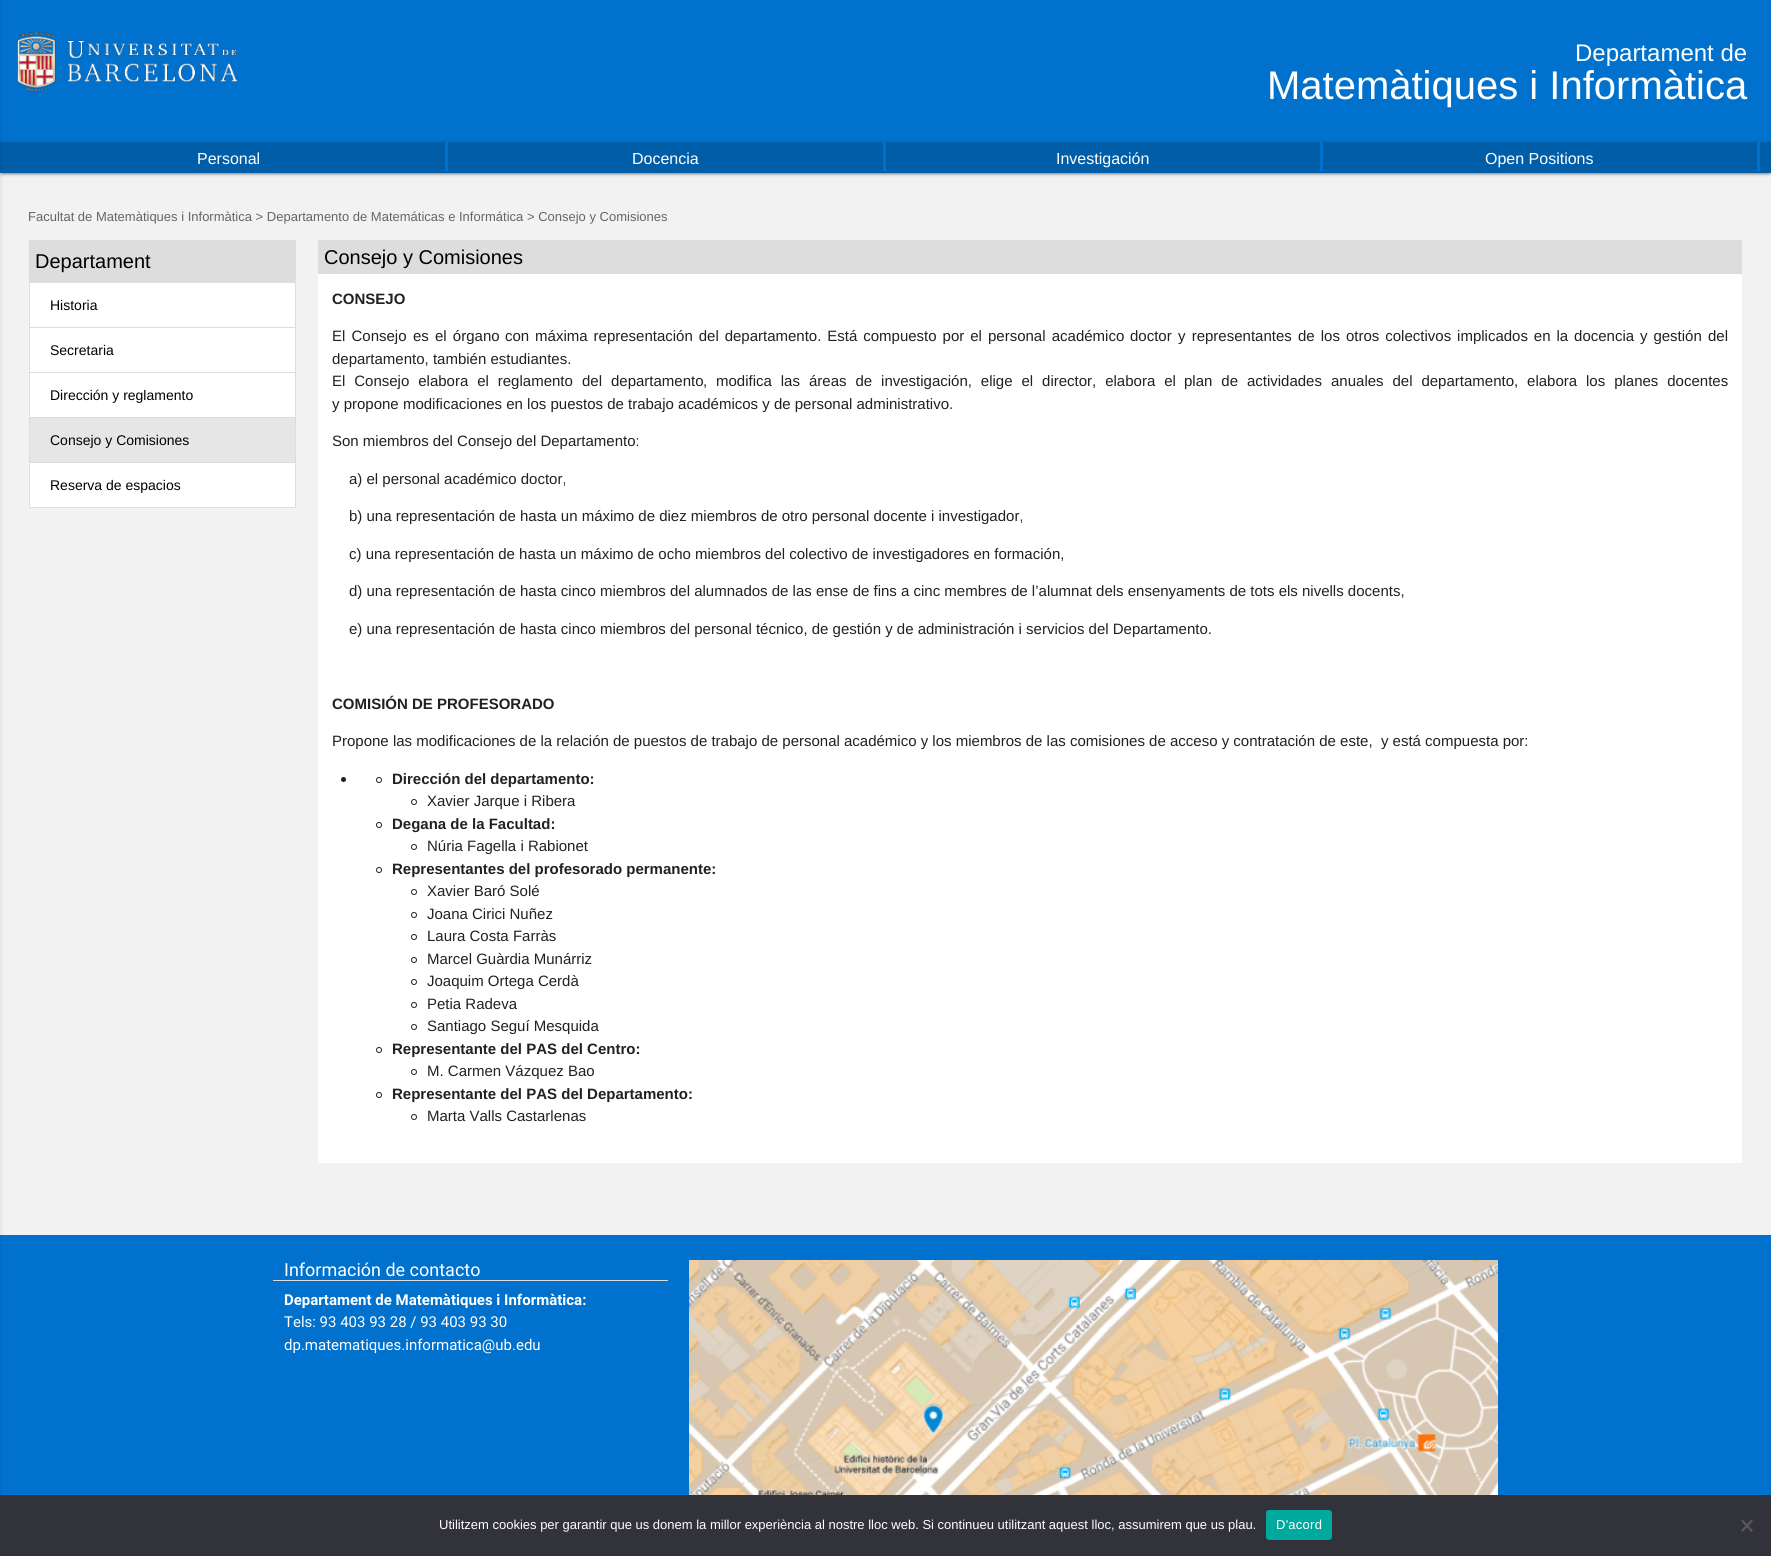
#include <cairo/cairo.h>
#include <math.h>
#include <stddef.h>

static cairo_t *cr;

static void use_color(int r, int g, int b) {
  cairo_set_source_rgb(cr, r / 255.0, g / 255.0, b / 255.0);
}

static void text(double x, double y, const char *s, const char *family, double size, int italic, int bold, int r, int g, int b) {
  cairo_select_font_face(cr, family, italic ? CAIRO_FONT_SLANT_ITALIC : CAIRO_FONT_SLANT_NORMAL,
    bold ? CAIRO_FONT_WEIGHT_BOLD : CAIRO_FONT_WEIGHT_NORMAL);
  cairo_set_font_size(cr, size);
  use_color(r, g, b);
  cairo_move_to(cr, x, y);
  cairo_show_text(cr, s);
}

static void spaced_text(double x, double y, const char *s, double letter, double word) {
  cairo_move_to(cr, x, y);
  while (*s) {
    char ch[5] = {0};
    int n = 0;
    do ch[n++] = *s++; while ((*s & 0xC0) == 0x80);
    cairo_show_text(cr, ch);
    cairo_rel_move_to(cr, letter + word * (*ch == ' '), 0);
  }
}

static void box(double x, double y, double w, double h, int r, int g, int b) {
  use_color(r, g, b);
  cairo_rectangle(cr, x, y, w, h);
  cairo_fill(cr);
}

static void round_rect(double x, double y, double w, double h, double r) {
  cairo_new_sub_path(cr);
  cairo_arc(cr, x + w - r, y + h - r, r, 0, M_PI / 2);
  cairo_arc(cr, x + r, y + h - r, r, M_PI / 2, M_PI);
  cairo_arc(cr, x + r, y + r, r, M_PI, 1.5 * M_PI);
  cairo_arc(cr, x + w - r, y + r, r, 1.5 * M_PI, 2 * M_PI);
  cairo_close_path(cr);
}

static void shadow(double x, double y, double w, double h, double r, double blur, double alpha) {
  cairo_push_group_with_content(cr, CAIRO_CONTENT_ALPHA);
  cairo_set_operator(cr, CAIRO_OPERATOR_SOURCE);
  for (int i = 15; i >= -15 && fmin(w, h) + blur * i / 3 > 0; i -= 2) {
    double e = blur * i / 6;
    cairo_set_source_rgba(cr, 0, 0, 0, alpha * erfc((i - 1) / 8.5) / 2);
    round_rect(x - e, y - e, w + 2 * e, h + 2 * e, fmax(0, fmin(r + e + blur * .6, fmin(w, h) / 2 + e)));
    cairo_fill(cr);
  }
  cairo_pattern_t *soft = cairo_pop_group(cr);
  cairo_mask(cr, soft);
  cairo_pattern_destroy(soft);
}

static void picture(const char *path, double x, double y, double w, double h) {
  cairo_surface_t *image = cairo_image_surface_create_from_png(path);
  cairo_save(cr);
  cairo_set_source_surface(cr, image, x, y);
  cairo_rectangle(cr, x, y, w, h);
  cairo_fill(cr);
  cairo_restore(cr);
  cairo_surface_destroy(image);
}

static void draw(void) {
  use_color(242, 242, 242);
  cairo_paint(cr);
  box(0, 0, 1771, 142, 0, 113, 205);
  use_color(0, 0, 0);
  shadow(2, 147, 1767, 27, 0, 0.5, 0.2);
  shadow(0, 143, 1771, 31, 0, 2.5, 0.12);
  shadow(0, 144, 1771, 31, 0, 1, 0.14);
  box(0, 142, 1771, 31, 0, 94, 168);
  box(0, 1235, 1771, 260, 0, 113, 205);
  use_color(0, 0, 0);
  shadow(-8, 1, 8, 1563, 0, 2.5, 0.12);
  picture("img_01.png", 17, 32, 221, 60);
  box(445, 142, 3, 29, 0, 113, 205);
  box(883, 142, 3, 29, 0, 113, 205);
  box(1320, 142, 3, 29, 0, 113, 205);
  box(1757, 142, 3, 29, 0, 113, 205);
  box(29, 240, 267, 43, 221, 221, 221);
  box(30, 283, 265, 44, 255, 255, 255);
  box(295, 282, 1, 45, 221, 221, 221);
  box(29, 282, 1, 45, 221, 221, 221);
  box(30, 328, 265, 44, 255, 255, 255);
  box(29, 327, 267, 1, 221, 221, 221);
  box(295, 327, 1, 45, 221, 221, 221);
  box(29, 327, 1, 45, 221, 221, 221);
  box(30, 373, 265, 44, 255, 255, 255);
  box(29, 372, 267, 1, 221, 221, 221);
  box(295, 372, 1, 45, 221, 221, 221);
  box(29, 372, 1, 45, 221, 221, 221);
  box(30, 418, 265, 44, 230, 230, 230);
  box(29, 417, 267, 1, 221, 221, 221);
  box(295, 417, 1, 45, 221, 221, 221);
  box(29, 417, 1, 45, 221, 221, 221);
  use_color(255, 255, 255);
  cairo_rectangle(cr, 29.5, 462.5, 266, 45);
  cairo_fill_preserve(cr);
  use_color(221, 221, 221);
  cairo_set_line_width(cr, 1);
  cairo_stroke(cr);
  box(318, 240, 1424, 34, 221, 221, 221);
  box(318, 274, 1424, 889, 255, 255, 255);
  use_color(33, 33, 33);
  cairo_arc(cr, 343.5, 779.5, 2.5, 0, 2 * M_PI);
  cairo_fill(cr);
  cairo_arc(cr, 379, 780, 2.5, 0, 2 * M_PI);
  cairo_stroke(cr);
  cairo_arc(cr, 414, 802, 2.5, 0, 2 * M_PI);
  cairo_stroke(cr);
  cairo_arc(cr, 379, 825, 2.5, 0, 2 * M_PI);
  cairo_stroke(cr);
  cairo_arc(cr, 414, 847, 2.5, 0, 2 * M_PI);
  cairo_stroke(cr);
  cairo_arc(cr, 379, 870, 2.5, 0, 2 * M_PI);
  cairo_stroke(cr);
  cairo_arc(cr, 414, 892, 2.5, 0, 2 * M_PI);
  cairo_stroke(cr);
  cairo_arc(cr, 414, 915, 2.5, 0, 2 * M_PI);
  cairo_stroke(cr);
  cairo_arc(cr, 414, 937, 2.5, 0, 2 * M_PI);
  cairo_stroke(cr);
  cairo_arc(cr, 414, 960, 2.5, 0, 2 * M_PI);
  cairo_stroke(cr);
  cairo_arc(cr, 414, 982, 2.5, 0, 2 * M_PI);
  cairo_stroke(cr);
  cairo_arc(cr, 414, 1005, 2.5, 0, 2 * M_PI);
  cairo_stroke(cr);
  cairo_arc(cr, 414, 1027, 2.5, 0, 2 * M_PI);
  cairo_stroke(cr);
  cairo_arc(cr, 379, 1050, 2.5, 0, 2 * M_PI);
  cairo_stroke(cr);
  cairo_arc(cr, 414, 1072, 2.5, 0, 2 * M_PI);
  cairo_stroke(cr);
  cairo_arc(cr, 379, 1095, 2.5, 0, 2 * M_PI);
  cairo_stroke(cr);
  cairo_arc(cr, 414, 1117, 2.5, 0, 2 * M_PI);
  cairo_stroke(cr);
  box(273, 1280, 395, 1, 221, 221, 221);
  picture("img_02.png", 689, 1260, 809, 235);
  box(0, 1495, 1771, 61, 50, 50, 58);
  use_color(0, 169, 157);
  round_rect(1266, 1510, 66, 30, 3);
  cairo_fill(cr);
  use_color(89, 89, 93);
  cairo_new_path(cr);
  cairo_move_to(cr, 1751.5, 1519.5);
  cairo_line_to(cr, 1753, 1521);
  cairo_line_to(cr, 1742.5, 1532);
  cairo_line_to(cr, 1741, 1530.5);
  cairo_close_path(cr);
  cairo_fill(cr);
  cairo_new_path(cr);
  cairo_move_to(cr, 1741, 1521);
  cairo_line_to(cr, 1742.5, 1519.5);
  cairo_line_to(cr, 1753, 1530.5);
  cairo_line_to(cr, 1751.5, 1532);
  cairo_close_path(cr);
  cairo_fill(cr);
  text(1575, 61, "Departament de", "Liberation Sans", 24, 0, 0, 255, 255, 255);
  text(1267, 99, "Matemàtiques i Informàtica", "Liberation Sans", 40, 0, 0, 255, 255, 255);
  text(197, 164, "Personal", "Liberation Sans", 16, 0, 0, 255, 255, 255);
  text(632, 164, "Docencia", "Liberation Sans", 16, 0, 0, 255, 255, 255);
  text(1056, 164, "Investigación", "Liberation Sans", 16, 0, 0, 255, 255, 255);
  text(1485, 164, "Open Positions", "Liberation Sans", 16, 0, 0, 255, 255, 255);
  text(28, 221, "Facultat de Matemàtiques i Informàtica > Departamento de Matemáticas e Informática > Consejo y Comisiones", "Liberation Sans", 13, 0, 0, 101, 101, 101);
  text(35, 268, "Departament", "Liberation Sans", 20, 0, 0, 0, 0, 0);
  text(50, 310, "Historia", "Liberation Sans", 14, 0, 0, 0, 0, 0);
  text(50, 355, "Secretaria", "Liberation Sans", 14, 0, 0, 0, 0, 0);
  text(50, 400, "Dirección y reglamento", "Liberation Sans", 14, 0, 0, 0, 0, 0);
  text(50, 445, "Consejo y Comisiones", "Liberation Sans", 14, 0, 0, 0, 0, 0);
  text(50, 490, "Reserva de espacios", "Liberation Sans", 14, 0, 0, 0, 0, 0);
  text(324, 264, "Consejo y Comisiones", "Liberation Sans", 20, 0, 0, 0, 0, 0);
  text(332, 304, "CONSEJO", "Liberation Sans", 15, 0, 1, 33, 33, 33);
  cairo_select_font_face(cr, "Liberation Sans", CAIRO_FONT_SLANT_NORMAL, CAIRO_FONT_WEIGHT_NORMAL);
  spaced_text(332, 341, "El Consejo", 0, 2);
  spaced_text(413, 341, "es el órgano", 0, 2);
  spaced_text(505, 341, "con máxima representación del departamento. Está compuesto por el", 0, 1.75);
  spaced_text(988, 341, "personal académico", 0, 2);
  text(1130, 341, "doctor", "Liberation Sans", 15, 0, 0, 33, 33, 33);
  spaced_text(1178, 341, "y representantes de los", 0, 2);
  spaced_text(1346, 341, "otros colectivos implicados en la docencia y gestión", 0, 1.75);
  text(1708, 341, "del", "Liberation Sans", 15, 0, 0, 33, 33, 33);
  text(332, 364, "departamento, también estudiantes.", "Liberation Sans", 15, 0, 0, 33, 33, 33);
  spaced_text(332, 386, "El Consejo elabora el reglamento", 0, 4.75);
  spaced_text(582, 386, "del departamento", 0, 4.75);
  text(703, 386, ",", "Liberation Sans", 15, 0, 0, 33, 33, 33);
  spaced_text(716, 386, "modifica las", 0, 4.75);
  spaced_text(809, 386, "áreas de investigación, elige el director, elabora el", 0, 4.75);
  spaced_text(1184, 386, "plan de actividades", 0, 4.75);
  spaced_text(1331, 386, "anuales del departamento, elabora los planes docentes", 0, 4.75);
  text(332, 409, "y propone modificaciones en los puestos de trabajo académicos y de personal administrativo.", "Liberation Sans", 15, 0, 0, 33, 33, 33);
  text(332, 446, "Son miembros del Consejo del Departamento:", "Liberation Sans", 15, 0, 0, 33, 33, 33);
  text(349, 484, "a) el personal académico doctor,", "Liberation Sans", 15, 0, 0, 33, 33, 33);
  text(349, 521, "b) una representación de hasta un máximo de diez miembros de otro personal docente i investigador,", "Liberation Sans", 15, 0, 0, 33, 33, 33);
  text(349, 559, "c) una representación de hasta un máximo de ocho miembros del colectivo de investigadores en formación,", "Liberation Sans", 15, 0, 0, 33, 33, 33);
  text(349, 596, "d) una representación de hasta cinco miembros del alumnados de las ense de fins a cinc membres de l’alumnat dels ensenyaments de tots els nivells docents,", "Liberation Sans", 15, 0, 0, 33, 33, 33);
  text(349, 634, "e) una representación de hasta cinco miembros del personal técnico, de gestión y de administración i servicios del Departamento.", "Liberation Sans", 15, 0, 0, 33, 33, 33);
  text(332, 709, "COMISIÓN DE PROFESORADO", "Liberation Sans", 15, 0, 1, 33, 33, 33);
  text(332, 746, "Propone las modificaciones de la relación de puestos de trabajo de personal académico y los miembros de las comisiones de acceso y contratación de este,  y está compuesta por:", "Liberation Sans", 15, 0, 0, 33, 33, 33);
  text(392, 784, "Dirección del departamento:", "Liberation Sans", 15, 0, 1, 33, 33, 33);
  text(427, 806, "Xavier Jarque i Ribera", "Liberation Sans", 15, 0, 0, 33, 33, 33);
  text(392, 829, "Degana de la Facultad:", "Liberation Sans", 15, 0, 1, 33, 33, 33);
  text(427, 851, "Núria Fagella i Rabionet", "Liberation Sans", 15, 0, 0, 33, 33, 33);
  text(392, 874, "Representantes del profesorado permanente:", "Liberation Sans", 15, 0, 1, 33, 33, 33);
  text(427, 896, "Xavier Baró Solé", "Liberation Sans", 15, 0, 0, 33, 33, 33);
  text(427, 919, "Joana Cirici Nuñez", "Liberation Sans", 15, 0, 0, 33, 33, 33);
  text(427, 941, "Laura Costa Farràs", "Liberation Sans", 15, 0, 0, 33, 33, 33);
  text(427, 964, "Marcel Guàrdia Munárriz", "Liberation Sans", 15, 0, 0, 33, 33, 33);
  text(427, 986, "Joaquim Ortega Cerdà", "Liberation Sans", 15, 0, 0, 33, 33, 33);
  text(427, 1009, "Petia Radeva", "Liberation Sans", 15, 0, 0, 33, 33, 33);
  text(427, 1031, "Santiago Seguí Mesquida", "Liberation Sans", 15, 0, 0, 33, 33, 33);
  text(392, 1054, "Representante del PAS del Centro:", "Liberation Sans", 15, 0, 1, 33, 33, 33);
  text(427, 1076, "M. Carmen Vázquez Bao", "Liberation Sans", 15, 0, 0, 33, 33, 33);
  text(392, 1099, "Representante del PAS del Departamento:", "Liberation Sans", 15, 0, 1, 33, 33, 33);
  text(427, 1121, "Marta Valls Castarlenas", "Liberation Sans", 15, 0, 0, 33, 33, 33);
  text(284, 1276, "Información de contacto", "Roboto", 18, 0, 0, 255, 255, 255);
  text(284, 1305, "Departament de Matemàtiques i Informàtica:", "Roboto", 15, 0, 1, 255, 255, 255);
  text(284, 1327, "Tels: 93 403 93 28 / 93 403 93 30", "Roboto", 15, 0, 0, 255, 255, 255);
  text(284, 1350, "dp.matematiques.informatica@ub.edu", "Roboto", 15, 0, 0, 255, 255, 255);
  text(439, 1529, "Utilitzem cookies per garantir que us donem la millor experiència al nostre lloc web. Si continueu utilitzant aquest lloc, assumirem que us plau.", "Liberation Sans", 13, 0, 0, 255, 255, 255);
  spaced_text(1276, 1529, "D'acord", 0.25, 0);
}

int main(void) {
  cairo_surface_t *surface = cairo_image_surface_create(CAIRO_FORMAT_RGB24, 1771, 1556);
  cr = cairo_create(surface);
  cairo_font_options_t *options = cairo_font_options_create();
  cairo_font_options_set_hint_metrics(options, CAIRO_HINT_METRICS_OFF);
  cairo_font_options_set_hint_style(options, CAIRO_HINT_STYLE_NONE);
  cairo_set_font_options(cr, options);
  cairo_set_miter_limit(cr, 4);
  draw();
  cairo_surface_write_to_png(surface, "out.png");
  cairo_font_options_destroy(options);
  cairo_destroy(cr);
  cairo_surface_destroy(surface);
  return 0;
}
